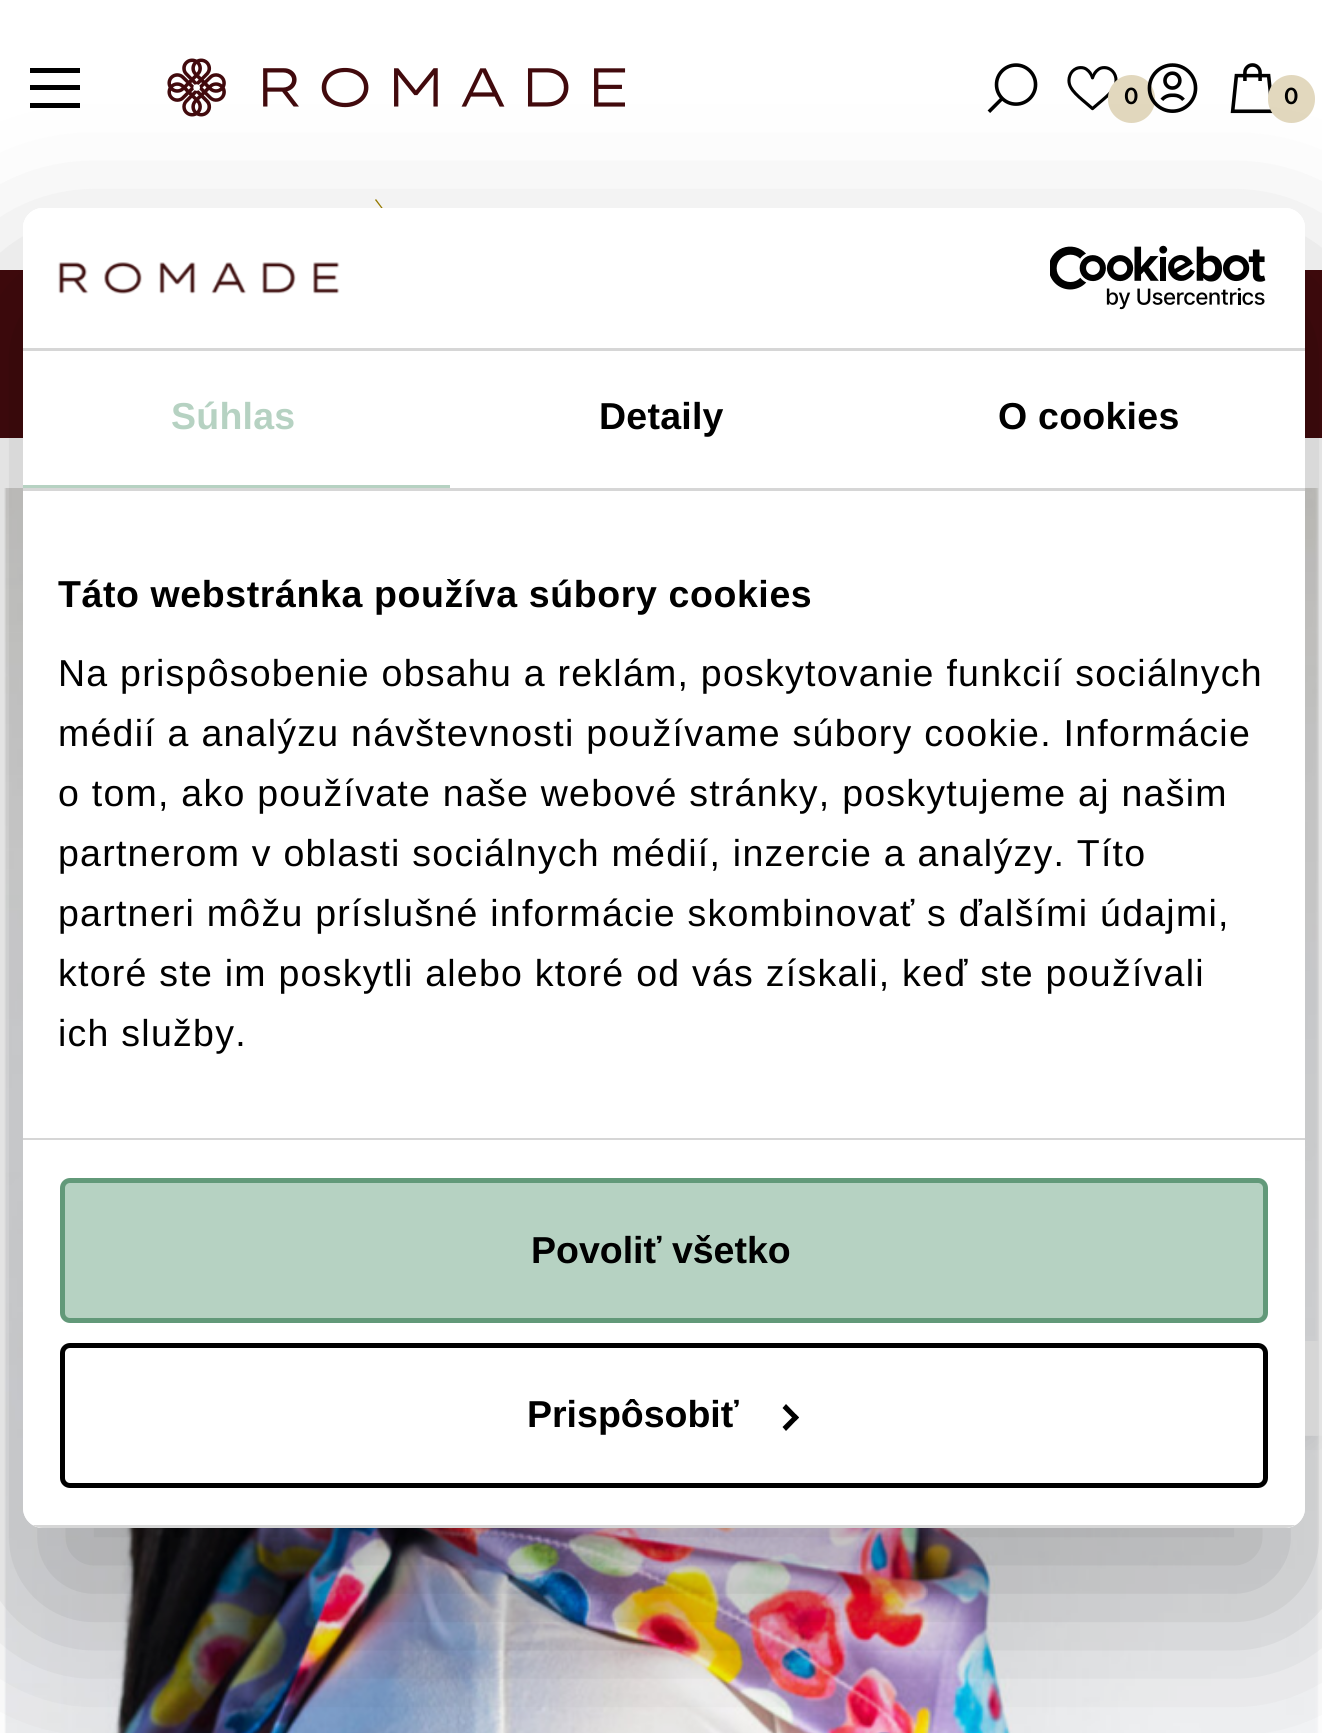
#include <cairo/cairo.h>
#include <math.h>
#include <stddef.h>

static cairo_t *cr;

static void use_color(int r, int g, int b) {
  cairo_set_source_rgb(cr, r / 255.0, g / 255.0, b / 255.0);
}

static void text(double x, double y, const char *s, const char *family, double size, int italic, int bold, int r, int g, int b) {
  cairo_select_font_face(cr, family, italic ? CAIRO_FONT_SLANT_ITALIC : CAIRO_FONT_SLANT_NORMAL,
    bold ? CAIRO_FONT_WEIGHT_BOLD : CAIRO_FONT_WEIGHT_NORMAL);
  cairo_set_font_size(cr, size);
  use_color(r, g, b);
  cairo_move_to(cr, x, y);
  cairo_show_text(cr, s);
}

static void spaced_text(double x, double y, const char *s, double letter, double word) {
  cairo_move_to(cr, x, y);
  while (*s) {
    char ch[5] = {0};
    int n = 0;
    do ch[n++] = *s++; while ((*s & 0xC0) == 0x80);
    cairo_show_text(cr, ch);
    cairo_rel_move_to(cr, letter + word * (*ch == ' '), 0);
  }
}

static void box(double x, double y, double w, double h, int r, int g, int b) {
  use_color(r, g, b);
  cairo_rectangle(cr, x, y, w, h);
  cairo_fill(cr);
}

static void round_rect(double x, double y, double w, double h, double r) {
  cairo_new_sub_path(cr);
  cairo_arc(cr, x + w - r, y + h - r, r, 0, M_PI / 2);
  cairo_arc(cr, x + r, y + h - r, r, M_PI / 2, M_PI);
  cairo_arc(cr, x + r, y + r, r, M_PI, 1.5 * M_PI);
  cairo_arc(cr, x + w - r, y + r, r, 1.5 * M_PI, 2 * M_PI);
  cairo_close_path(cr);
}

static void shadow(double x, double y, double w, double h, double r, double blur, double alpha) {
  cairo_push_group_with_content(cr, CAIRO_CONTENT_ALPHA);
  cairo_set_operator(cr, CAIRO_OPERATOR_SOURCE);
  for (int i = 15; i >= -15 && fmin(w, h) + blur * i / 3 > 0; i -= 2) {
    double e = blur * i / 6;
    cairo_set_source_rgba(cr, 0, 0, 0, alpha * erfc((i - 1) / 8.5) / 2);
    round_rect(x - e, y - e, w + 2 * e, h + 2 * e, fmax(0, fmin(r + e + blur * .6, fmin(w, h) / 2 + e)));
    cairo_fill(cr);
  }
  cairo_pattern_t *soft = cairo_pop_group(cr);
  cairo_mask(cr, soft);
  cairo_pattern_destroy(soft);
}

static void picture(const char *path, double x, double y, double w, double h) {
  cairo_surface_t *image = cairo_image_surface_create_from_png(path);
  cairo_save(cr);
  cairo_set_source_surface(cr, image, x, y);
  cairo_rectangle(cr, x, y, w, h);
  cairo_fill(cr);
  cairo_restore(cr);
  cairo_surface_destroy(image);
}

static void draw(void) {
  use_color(255, 255, 255);
  cairo_paint(cr);
  box(30, 68, 50, 5, 0, 0, 0);
  box(30, 85, 50, 5, 0, 0, 0);
  box(30, 103, 50, 5, 0, 0, 0);
  picture("img_01.png", 167, 58, 459, 59);
  picture("img_02.png", 987, 63, 51, 50);
  picture("img_03.png", 1067, 66, 51, 45);
  use_color(226, 216, 190);
  round_rect(1108, 75, 47, 48, 23.5);
  cairo_fill(cr);
  picture("img_04.png", 1147, 63, 51, 50);
  picture("img_05.png", 1230, 63, 43, 51);
  round_rect(1268, 75, 47, 48, 23.5);
  cairo_fill(cr);
  use_color(157, 127, 0);
  cairo_new_path(cr);
  cairo_move_to(cr, 375, 221);
  cairo_line_to(cr, 376, 222);
  cairo_line_to(cr, 384.5, 210.5);
  cairo_line_to(cr, 376, 199);
  cairo_line_to(cr, 375, 200);
  cairo_line_to(cr, 383, 210.5);
  cairo_close_path(cr);
  cairo_fill(cr);
  box(0, 270, 1322, 168, 66, 10, 13);
  picture("img_08.png", 4, 488, 1315, 1245);
  cairo_save(cr);
  cairo_rectangle(cr, 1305, 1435, 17, 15);
  cairo_clip(cr);
  use_color(0, 0, 0);
  shadow(1228, 1350, 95, 95, 30, 15, 0.08);
  cairo_restore(cr);
  cairo_set_source_rgba(cr, 1, 1, 1, 0.7);
  cairo_new_path(cr);
  cairo_move_to(cr, 1228, 1406);
  cairo_line_to(cr, 1228, 1371);
  cairo_curve_to(cr, 1228, 1355, 1241, 1341, 1258, 1341);
  cairo_line_to(cr, 1322, 1341);
  cairo_line_to(cr, 1322, 1436);
  cairo_line_to(cr, 1258, 1436);
  cairo_curve_to(cr, 1241, 1436, 1228, 1423, 1228, 1406);
  cairo_close_path(cr);
  cairo_fill(cr);
  cairo_save(cr);
  cairo_set_fill_rule(cr, CAIRO_FILL_RULE_EVEN_ODD);
  cairo_new_path(cr);
  cairo_move_to(cr, 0, 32);
  cairo_line_to(cr, 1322, 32);
  cairo_line_to(cr, 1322, 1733);
  cairo_line_to(cr, 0, 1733);
  cairo_close_path(cr);
  cairo_move_to(cr, 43, 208);
  cairo_line_to(cr, 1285, 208);
  cairo_curve_to(cr, 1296, 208, 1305, 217, 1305, 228);
  cairo_line_to(cr, 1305, 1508);
  cairo_curve_to(cr, 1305, 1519, 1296, 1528, 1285, 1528);
  cairo_line_to(cr, 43, 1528);
  cairo_curve_to(cr, 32, 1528, 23, 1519, 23, 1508);
  cairo_line_to(cr, 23, 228);
  cairo_curve_to(cr, 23, 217, 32, 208, 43, 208);
  cairo_close_path(cr);
  cairo_clip(cr);
  use_color(0, 0, 0);
  shadow(23, 288, 1282, 1320, 20, 85, 0.3);
  cairo_restore(cr);
  use_color(255, 255, 255);
  round_rect(23, 208, 1282, 1320, 20);
  cairo_fill(cr);
  box(23, 348, 1282, 3, 214, 214, 214);
  picture("img_06.png", 58, 262, 282, 32);
  picture("img_07.png", 1050, 245, 216, 65);
  box(23, 488, 1282, 3, 214, 214, 214);
  box(23, 485, 427, 3, 182, 210, 194);
  box(23, 1138, 1282, 2, 214, 214, 214);
  cairo_save(cr);
  round_rect(23, 208, 1282, 1320, 20);
  cairo_clip(cr);
  box(32, 1525, 1264, 3, 214, 214, 214);
  cairo_restore(cr);
  use_color(182, 210, 194);
  round_rect(62.5, 1180.5, 1203, 140, 7.5);
  cairo_fill_preserve(cr);
  use_color(98, 153, 121);
  cairo_set_line_width(cr, 5);
  cairo_stroke(cr);
  round_rect(62.5, 1345.5, 1203, 140, 7.5);
  use_color(0, 0, 0);
  cairo_stroke(cr);
  cairo_new_path(cr);
  cairo_move_to(cr, 786, 1404);
  cairo_line_to(cr, 799, 1417.5);
  cairo_line_to(cr, 795.5, 1421);
  cairo_line_to(cr, 782.5, 1408);
  cairo_close_path(cr);
  cairo_fill(cr);
  cairo_new_path(cr);
  cairo_move_to(cr, 795.5, 1414);
  cairo_line_to(cr, 799, 1417.5);
  cairo_line_to(cr, 786, 1431);
  cairo_line_to(cr, 782.5, 1427);
  cairo_close_path(cr);
  cairo_fill(cr);
  text(1124, 104, "0", "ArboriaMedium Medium", 25, 0, 0, 0, 0, 0);
  text(1284, 104, "0", "ArboriaMedium Medium", 25, 0, 0, 0, 0, 0);
  cairo_select_font_face(cr, "Liberation Sans", CAIRO_FONT_SLANT_NORMAL, CAIRO_FONT_WEIGHT_BOLD);
  cairo_set_font_size(cr, 37.5);
  use_color(182, 210, 194);
  spaced_text(171, 429, "Súhlas", 0.25, 0);
  use_color(0, 0, 0);
  spaced_text(599, 429, "Detaily", 0.25, 0);
  spaced_text(998, 429, "O cookies", 0.25, 0);
  spaced_text(58, 607, "Táto webstránka používa súbory cookies", 0.6, 0);
  cairo_select_font_face(cr, "Liberation Sans", CAIRO_FONT_SLANT_NORMAL, CAIRO_FONT_WEIGHT_NORMAL);
  spaced_text(58, 686, "Na prispôsobenie obsahu a reklám, poskytovanie funkcií sociálnych", 1.25, 0);
  spaced_text(58, 746, "médií a analýzu návštevnosti používame súbory cookie. Informácie", 1.25, 0);
  spaced_text(58, 806, "o tom, ako používate naše webové stránky, poskytujeme aj našim", 1.25, 0);
  spaced_text(58, 866, "partnerom v oblasti sociálnych médií, inzercie a analýzy. Títo", 1.25, 0);
  spaced_text(58, 926, "partneri môžu príslušné informácie skombinovať s ďalšími údajmi,", 1.25, 0);
  spaced_text(58, 986, "ktoré ste im poskytli alebo ktoré od vás získali, keď ste používali", 1.25, 0);
  spaced_text(58, 1046, "ich služby.", 1.25, 0);
  text(531, 1263, "Povoliť všetko", "Liberation Sans", 37.5, 0, 1, 0, 0, 0);
  text(527, 1427, "Prispôsobiť", "Liberation Sans", 37.5, 0, 1, 0, 0, 0);
}

int main(void) {
  cairo_surface_t *surface = cairo_image_surface_create(CAIRO_FORMAT_RGB24, 1322, 1733);
  cr = cairo_create(surface);
  cairo_font_options_t *options = cairo_font_options_create();
  cairo_font_options_set_hint_metrics(options, CAIRO_HINT_METRICS_OFF);
  cairo_font_options_set_hint_style(options, CAIRO_HINT_STYLE_NONE);
  cairo_set_font_options(cr, options);
  cairo_set_miter_limit(cr, 4);
  draw();
  cairo_surface_write_to_png(surface, "out.png");
  cairo_font_options_destroy(options);
  cairo_destroy(cr);
  cairo_surface_destroy(surface);
  return 0;
}
